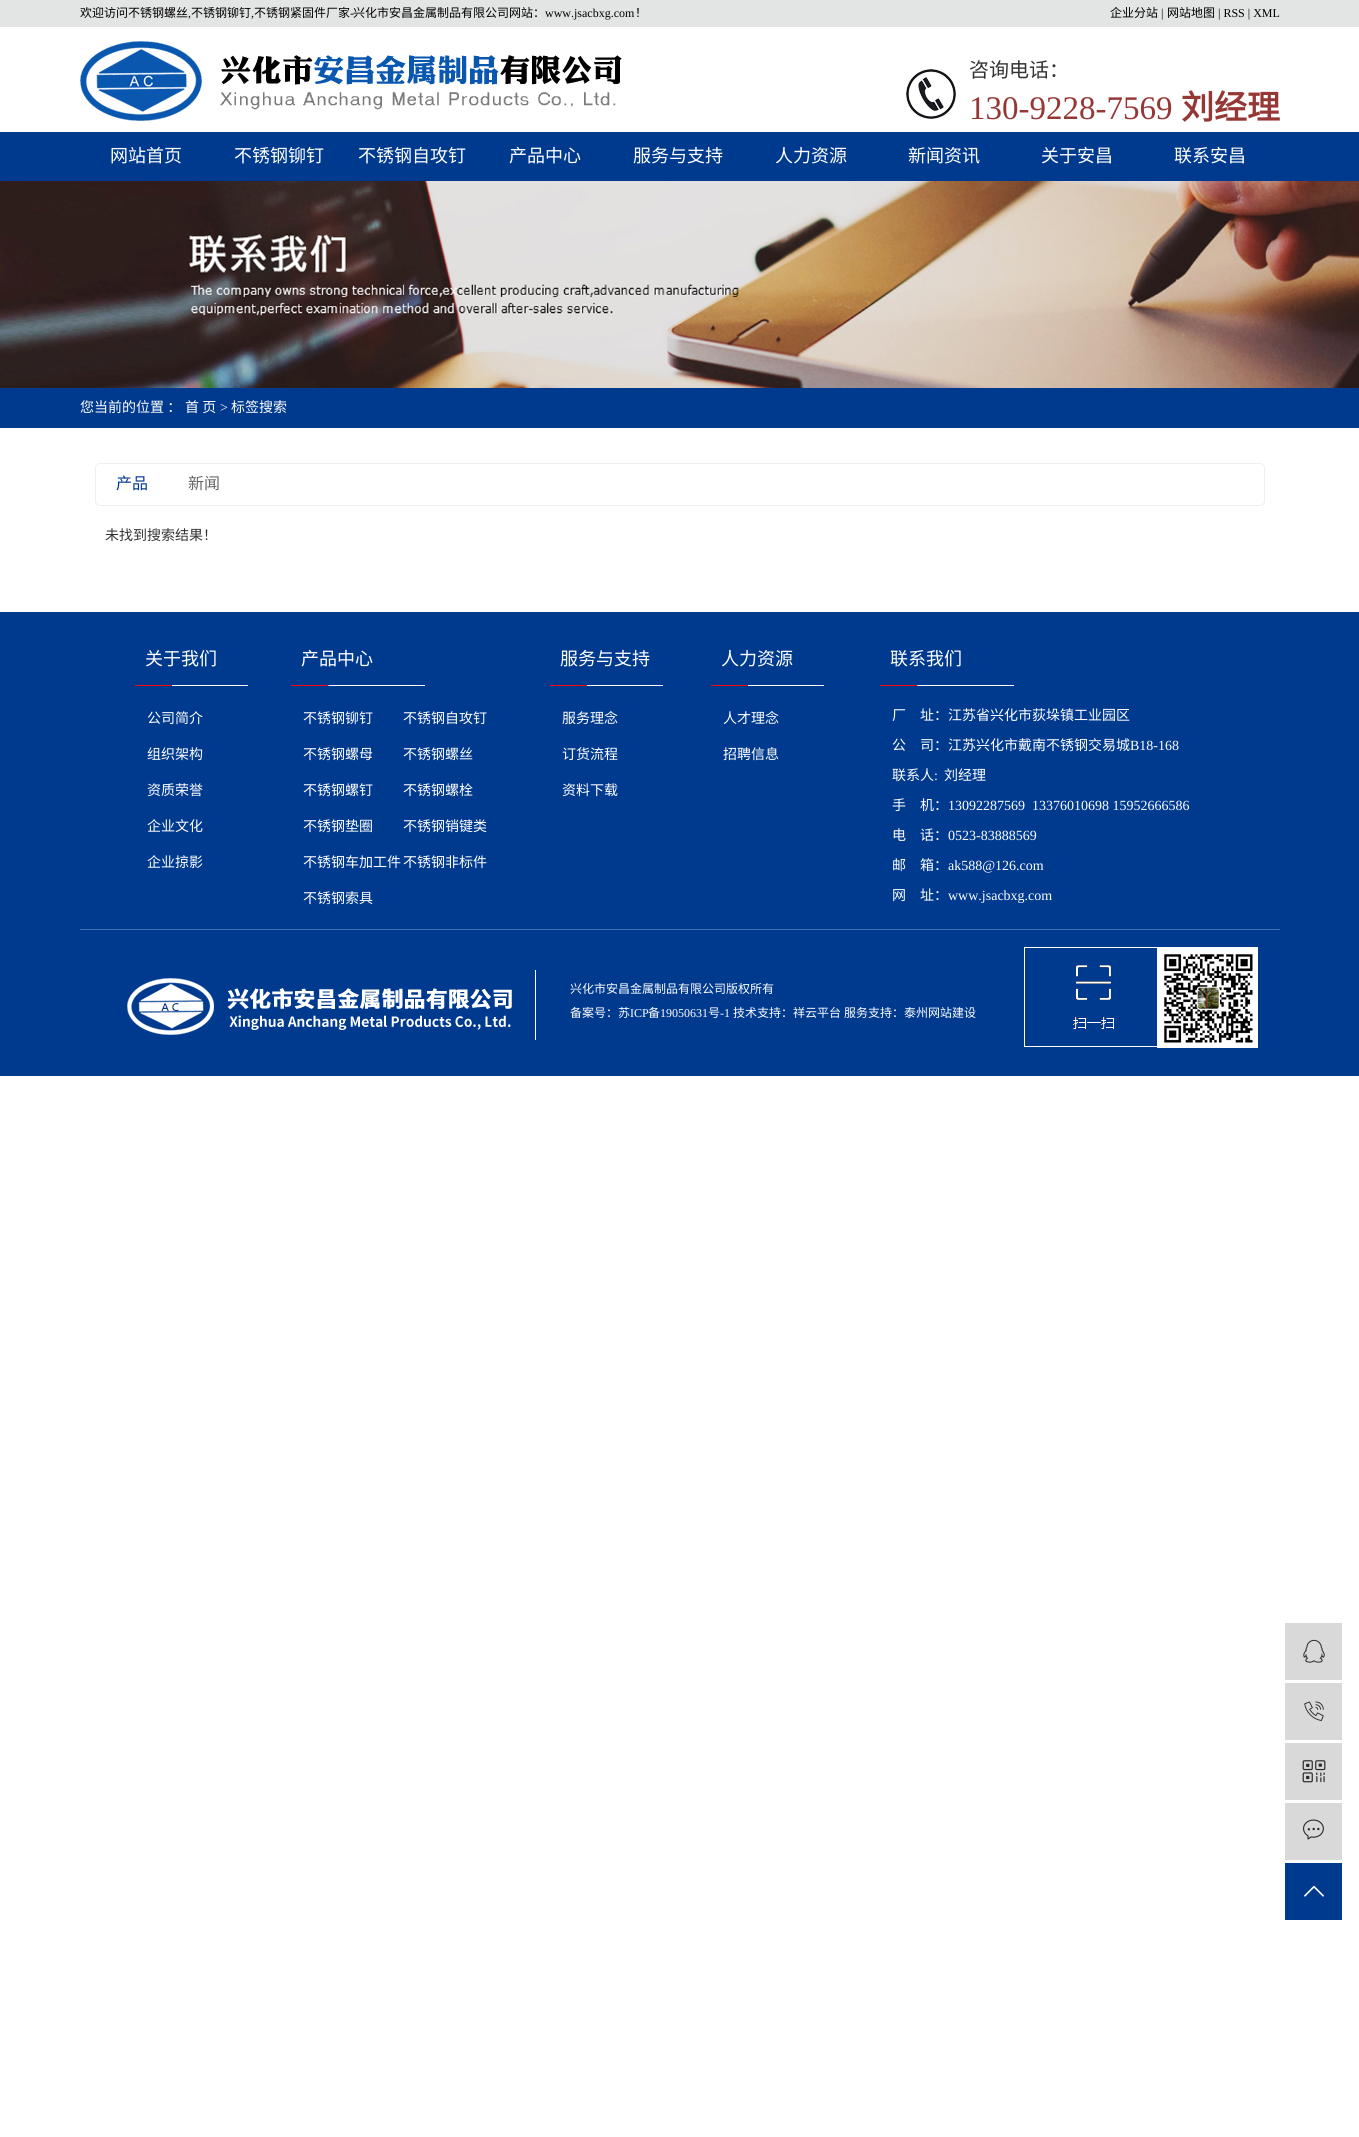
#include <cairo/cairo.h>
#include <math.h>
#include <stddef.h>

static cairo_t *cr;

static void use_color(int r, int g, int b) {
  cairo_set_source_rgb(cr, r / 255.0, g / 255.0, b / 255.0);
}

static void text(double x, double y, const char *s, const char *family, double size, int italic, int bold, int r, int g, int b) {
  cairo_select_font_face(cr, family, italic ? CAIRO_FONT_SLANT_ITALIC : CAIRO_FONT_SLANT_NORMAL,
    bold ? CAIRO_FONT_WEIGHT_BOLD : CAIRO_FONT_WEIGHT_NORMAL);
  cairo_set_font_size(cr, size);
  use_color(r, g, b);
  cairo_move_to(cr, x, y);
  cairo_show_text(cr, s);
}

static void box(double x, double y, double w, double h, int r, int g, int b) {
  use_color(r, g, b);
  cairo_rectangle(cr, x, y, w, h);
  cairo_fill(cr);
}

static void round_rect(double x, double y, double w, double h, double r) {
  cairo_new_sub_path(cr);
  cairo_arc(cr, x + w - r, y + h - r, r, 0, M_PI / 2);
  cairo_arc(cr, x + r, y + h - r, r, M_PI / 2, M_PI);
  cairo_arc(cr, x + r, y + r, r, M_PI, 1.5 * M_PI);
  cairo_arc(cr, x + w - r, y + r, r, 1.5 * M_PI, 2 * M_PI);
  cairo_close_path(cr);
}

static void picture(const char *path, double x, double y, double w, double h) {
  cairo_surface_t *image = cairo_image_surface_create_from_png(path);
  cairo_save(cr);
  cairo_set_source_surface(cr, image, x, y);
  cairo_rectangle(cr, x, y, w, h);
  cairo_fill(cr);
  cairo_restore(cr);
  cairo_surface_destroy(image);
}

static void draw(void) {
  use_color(255, 255, 255);
  cairo_paint(cr);
  box(0, 0, 1359, 27, 227, 228, 228);
  picture("img_01.png", 80, 41, 542, 80);
  picture("img_02.png", 906, 69, 50, 50);
  box(0, 132, 1359, 49, 0, 58, 143);
  picture("img_03.png", 0, 181, 1359, 207);
  box(0, 388, 1359, 40, 0, 58, 143);
  round_rect(95.5, 463.5, 1169, 42, 4.5);
  use_color(239, 239, 239);
  cairo_set_line_width(cr, 1);
  cairo_stroke(cr);
  box(0, 612, 1359, 464, 0, 58, 143);
  box(80, 929, 1200, 1, 71, 113, 174);
  picture("img_04.png", 135, 685, 113, 1);
  picture("img_05.png", 291, 685, 134, 1);
  picture("img_04.png", 550, 685, 113, 1);
  picture("img_04.png", 711, 685, 113, 1);
  picture("img_05.png", 880, 685, 134, 1);
  box(535, 970, 1, 70, 255, 255, 255);
  picture("img_06.png", 127, 978, 385, 57);
  picture("img_07.png", 1024, 947, 234, 101);
  box(1285, 1623, 57, 57, 217, 217, 217);
  picture("img_08.png", 1303, 1639, 22, 24);
  box(1285, 1683, 57, 57, 217, 217, 217);
  picture("img_09.png", 1304, 1701, 20, 20);
  box(1285, 1743, 57, 57, 217, 217, 217);
  picture("img_10.png", 1302, 1760, 24, 23);
  box(1285, 1803, 57, 57, 217, 217, 217);
  picture("img_11.png", 1302, 1819, 22, 21);
  box(1285, 1863, 57, 57, 0, 58, 143);
  picture("img_12.png", 1304, 1885, 20, 12);
  text(80, 17, "欢迎访问不锈钢螺丝", "Noto Sans CJK SC", 12, 0, 0, 0, 0, 0);
  text(191, 17, "不锈钢铆钉", "Noto Sans CJK SC", 12, 0, 0, 0, 0, 0);
  text(254, 17, "不锈钢紧固件厂家", "Noto Sans CJK SC", 12, 0, 0, 0, 0, 0);
  text(350, 17, "-", "Liberation Serif", 12, 0, 0, 0, 0, 0);
  text(353, 17, "兴化市安昌金属制品有限公司网站：", "Noto Sans CJK SC", 12, 0, 0, 0, 0, 0);
  text(545, 17, "www.jsacbxg.com", "Liberation Serif", 12, 0, 0, 0, 0, 0);
  text(635, 17, "！", "Noto Sans CJK SC", 12, 0, 0, 0, 0, 0);
  text(188, 17, ",", "Liberation Serif", 12, 0, 0, 0, 0, 0);
  text(251, 17, ",", "Liberation Serif", 12, 0, 0, 0, 0, 0);
  text(1110, 17, "企业分站", "Noto Sans CJK SC", 12, 0, 0, 0, 0, 0);
  text(1161, 17, "|", "Liberation Serif", 12, 0, 0, 0, 0, 0);
  text(1167, 17, "网站地图", "Noto Sans CJK SC", 12, 0, 0, 0, 0, 0);
  text(1218, 17, "| RSS | XML", "Liberation Serif", 12, 0, 0, 0, 0, 0);
  text(969, 77, "咨询电话：", "Noto Sans CJK SC", 20, 0, 0, 51, 51, 51);
  text(969, 119, "130-9228-7569", "Liberation Serif", 33, 0, 0, 149, 55, 52);
  text(1181, 119, "刘经理", "Noto Sans CJK SC", 33, 0, 1, 149, 55, 52);
  text(110, 162, "网站首页", "Noto Sans CJK SC", 18, 0, 0, 255, 255, 255);
  text(234, 162, "不锈钢铆钉", "Noto Sans CJK SC", 18, 0, 0, 255, 255, 255);
  text(358, 162, "不锈钢自攻钉", "Noto Sans CJK SC", 18, 0, 0, 255, 255, 255);
  text(509, 162, "产品中心", "Noto Sans CJK SC", 18, 0, 0, 255, 255, 255);
  text(633, 162, "服务与支持", "Noto Sans CJK SC", 18, 0, 0, 255, 255, 255);
  text(775, 162, "人力资源", "Noto Sans CJK SC", 18, 0, 0, 255, 255, 255);
  text(908, 162, "新闻资讯", "Noto Sans CJK SC", 18, 0, 0, 255, 255, 255);
  text(1041, 162, "关于安昌", "Noto Sans CJK SC", 18, 0, 0, 255, 255, 255);
  text(1174, 162, "联系安昌", "Noto Sans CJK SC", 18, 0, 0, 255, 255, 255);
  text(80, 412, "您当前的位置 ：", "Noto Sans CJK SC", 14, 0, 0, 255, 255, 255);
  text(185, 412, "首 页", "Noto Sans CJK SC", 14, 0, 0, 255, 255, 255);
  text(220, 412, ">", "Liberation Serif", 14, 0, 0, 255, 255, 255);
  text(231, 412, "标签搜索", "Noto Sans CJK SC", 14, 0, 0, 255, 255, 255);
  text(116, 489, "产品", "Noto Sans CJK SC", 16, 0, 0, 0, 58, 143);
  text(188, 489, "新闻", "Noto Sans CJK SC", 16, 0, 0, 102, 102, 102);
  text(105, 540, "未找到搜索结果！", "Noto Sans CJK SC", 14, 0, 0, 51, 51, 51);
  text(145, 665, "关于我们", "Noto Sans CJK SC", 18, 0, 0, 255, 255, 255);
  text(147, 723, "公司简介", "Noto Sans CJK SC", 14, 0, 0, 255, 255, 255);
  text(147, 759, "组织架构", "Noto Sans CJK SC", 14, 0, 0, 255, 255, 255);
  text(147, 795, "资质荣誉", "Noto Sans CJK SC", 14, 0, 0, 255, 255, 255);
  text(147, 831, "企业文化", "Noto Sans CJK SC", 14, 0, 0, 255, 255, 255);
  text(147, 867, "企业掠影", "Noto Sans CJK SC", 14, 0, 0, 255, 255, 255);
  text(301, 665, "产品中心", "Noto Sans CJK SC", 18, 0, 0, 255, 255, 255);
  text(303, 723, "不锈钢铆钉", "Noto Sans CJK SC", 14, 0, 0, 255, 255, 255);
  text(403, 723, "不锈钢自攻钉", "Noto Sans CJK SC", 14, 0, 0, 255, 255, 255);
  text(303, 759, "不锈钢螺母", "Noto Sans CJK SC", 14, 0, 0, 255, 255, 255);
  text(403, 759, "不锈钢螺丝", "Noto Sans CJK SC", 14, 0, 0, 255, 255, 255);
  text(303, 795, "不锈钢螺钉", "Noto Sans CJK SC", 14, 0, 0, 255, 255, 255);
  text(403, 795, "不锈钢螺栓", "Noto Sans CJK SC", 14, 0, 0, 255, 255, 255);
  text(303, 831, "不锈钢垫圈", "Noto Sans CJK SC", 14, 0, 0, 255, 255, 255);
  text(403, 831, "不锈钢销键类", "Noto Sans CJK SC", 14, 0, 0, 255, 255, 255);
  text(303, 867, "不锈钢车加工件", "Noto Sans CJK SC", 14, 0, 0, 255, 255, 255);
  text(403, 867, "不锈钢非标件", "Noto Sans CJK SC", 14, 0, 0, 255, 255, 255);
  text(303, 903, "不锈钢索具", "Noto Sans CJK SC", 14, 0, 0, 255, 255, 255);
  text(560, 665, "服务与支持", "Noto Sans CJK SC", 18, 0, 0, 255, 255, 255);
  text(562, 723, "服务理念", "Noto Sans CJK SC", 14, 0, 0, 255, 255, 255);
  text(562, 759, "订货流程", "Noto Sans CJK SC", 14, 0, 0, 255, 255, 255);
  text(562, 795, "资料下载", "Noto Sans CJK SC", 14, 0, 0, 255, 255, 255);
  text(721, 665, "人力资源", "Noto Sans CJK SC", 18, 0, 0, 255, 255, 255);
  text(723, 723, "人才理念", "Noto Sans CJK SC", 14, 0, 0, 255, 255, 255);
  text(723, 759, "招聘信息", "Noto Sans CJK SC", 14, 0, 0, 255, 255, 255);
  text(890, 665, "联系我们", "Noto Sans CJK SC", 18, 0, 0, 255, 255, 255);
  text(892, 720, "厂　址：江苏省兴化市荻垛镇工业园区", "Noto Sans CJK SC", 14, 0, 0, 255, 255, 255);
  text(892, 750, "公　司：江苏兴化市戴南不锈钢交易城", "Noto Sans CJK SC", 14, 0, 0, 255, 255, 255);
  text(1130, 750, "B18-168", "Liberation Serif", 14, 0, 0, 255, 255, 255);
  text(892, 780, "联系人", "Noto Sans CJK SC", 14, 0, 0, 255, 255, 255);
  text(934, 780, ":", "Liberation Serif", 14, 0, 0, 255, 255, 255);
  text(944, 780, "刘经理", "Noto Sans CJK SC", 14, 0, 0, 255, 255, 255);
  text(892, 810, "手　机：", "Noto Sans CJK SC", 14, 0, 0, 255, 255, 255);
  text(948, 810, "13092287569  13376010698 15952666586", "Liberation Serif", 14, 0, 0, 255, 255, 255);
  text(892, 840, "电　话：", "Noto Sans CJK SC", 14, 0, 0, 255, 255, 255);
  text(948, 840, "0523-83888569", "Liberation Serif", 14, 0, 0, 255, 255, 255);
  text(892, 870, "邮　箱：", "Noto Sans CJK SC", 14, 0, 0, 255, 255, 255);
  text(948, 870, "ak588@126.com", "Liberation Serif", 14, 0, 0, 255, 255, 255);
  text(892, 900, "网　址：", "Noto Sans CJK SC", 14, 0, 0, 255, 255, 255);
  text(948, 900, "www.jsacbxg.com", "Liberation Serif", 14, 0, 0, 255, 255, 255);
  text(570, 993, "兴化市安昌金属制品有限公司版权所有", "Noto Sans CJK SC", 12, 0, 0, 255, 255, 255);
  text(570, 1017, "备案号：苏", "Noto Sans CJK SC", 12, 0, 0, 255, 255, 255);
  text(630, 1017, "ICP", "Liberation Serif", 12, 0, 0, 255, 255, 255);
  text(648, 1017, "备", "Noto Sans CJK SC", 12, 0, 0, 255, 255, 255);
  text(660, 1017, "19050631", "Liberation Serif", 12, 0, 0, 255, 255, 255);
  text(708, 1017, "号", "Noto Sans CJK SC", 12, 0, 0, 255, 255, 255);
  text(720, 1017, "-1", "Liberation Serif", 12, 0, 0, 255, 255, 255);
  text(733, 1017, "技术支持：祥云平台", "Noto Sans CJK SC", 12, 0, 0, 255, 255, 255);
  text(844, 1017, "服务支持：泰州网站建设", "Noto Sans CJK SC", 12, 0, 0, 255, 255, 255);
}

int main(void) {
  cairo_surface_t *surface = cairo_image_surface_create(CAIRO_FORMAT_RGB24, 1359, 2137);
  cr = cairo_create(surface);
  cairo_font_options_t *options = cairo_font_options_create();
  cairo_font_options_set_hint_metrics(options, CAIRO_HINT_METRICS_OFF);
  cairo_font_options_set_hint_style(options, CAIRO_HINT_STYLE_NONE);
  cairo_set_font_options(cr, options);
  cairo_set_miter_limit(cr, 4);
  draw();
  cairo_surface_write_to_png(surface, "out.png");
  cairo_font_options_destroy(options);
  cairo_destroy(cr);
  cairo_surface_destroy(surface);
  return 0;
}
